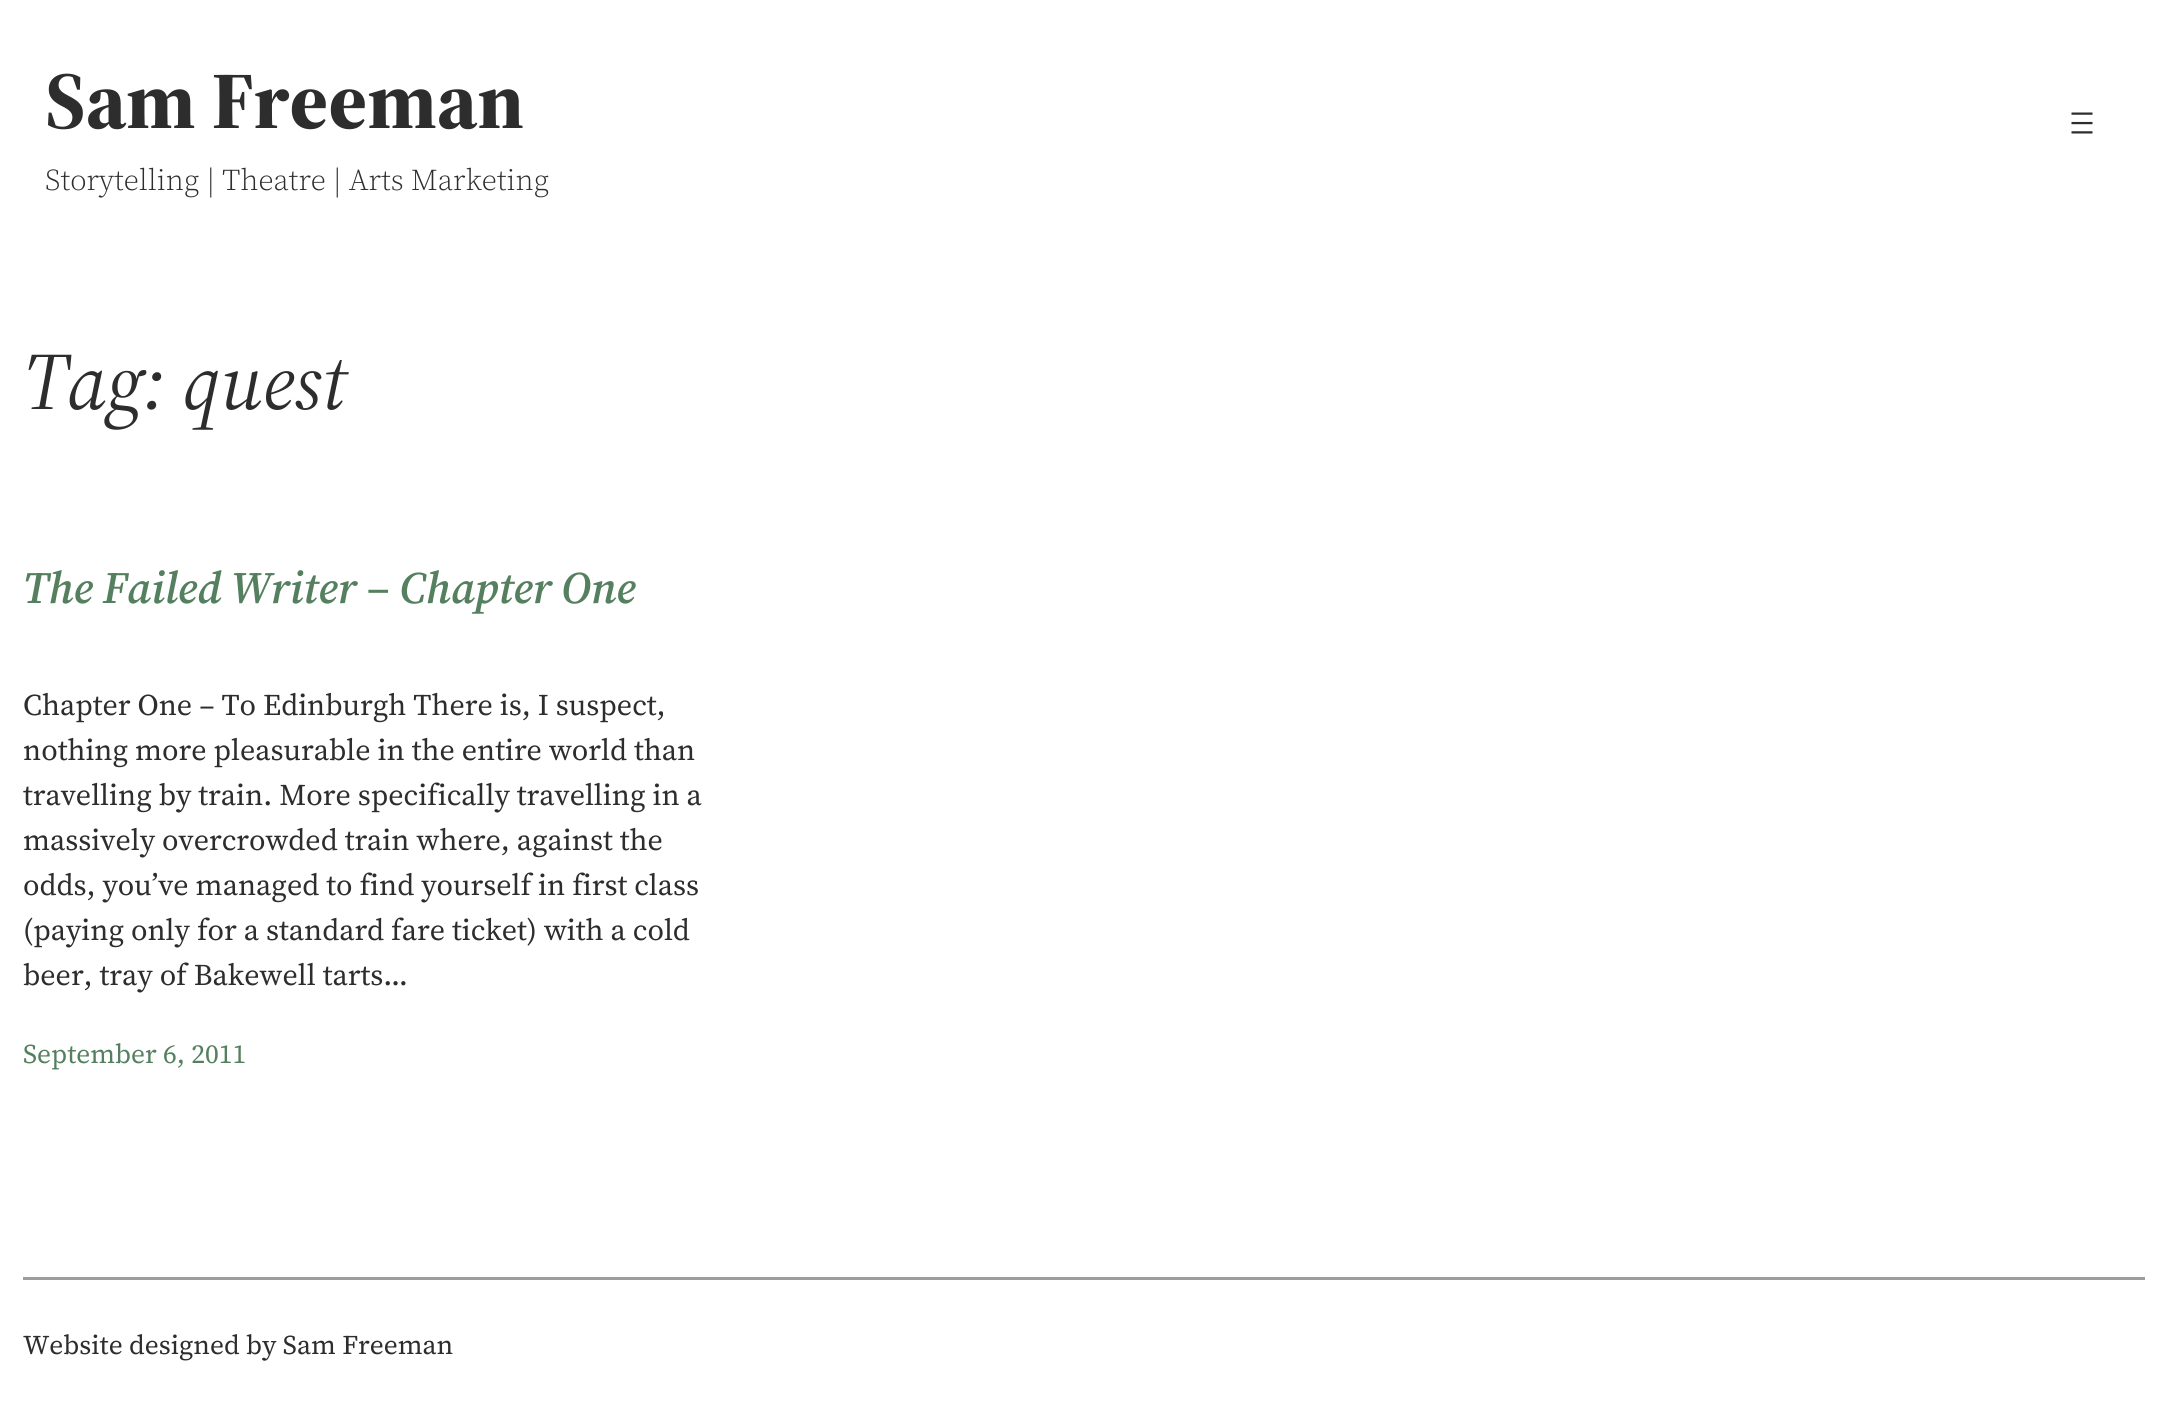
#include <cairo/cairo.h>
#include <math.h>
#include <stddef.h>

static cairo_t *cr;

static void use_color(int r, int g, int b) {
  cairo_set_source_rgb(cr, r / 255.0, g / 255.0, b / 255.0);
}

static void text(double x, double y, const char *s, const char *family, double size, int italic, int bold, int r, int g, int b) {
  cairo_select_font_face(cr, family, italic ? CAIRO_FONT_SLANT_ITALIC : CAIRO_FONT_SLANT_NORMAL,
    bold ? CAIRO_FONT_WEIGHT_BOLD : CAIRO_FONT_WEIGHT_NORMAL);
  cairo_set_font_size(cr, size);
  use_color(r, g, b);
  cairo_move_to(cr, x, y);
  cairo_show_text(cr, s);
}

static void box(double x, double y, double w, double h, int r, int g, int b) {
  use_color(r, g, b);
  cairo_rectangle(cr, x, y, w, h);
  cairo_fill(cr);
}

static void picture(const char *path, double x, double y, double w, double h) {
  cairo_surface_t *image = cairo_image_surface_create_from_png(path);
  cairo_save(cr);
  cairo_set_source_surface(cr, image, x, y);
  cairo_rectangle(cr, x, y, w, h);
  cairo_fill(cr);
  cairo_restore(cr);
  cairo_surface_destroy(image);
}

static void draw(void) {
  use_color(255, 255, 255);
  cairo_paint(cr);
  picture("img_01.png", 2071, 112, 22, 22);
  box(23, 1277, 2122, 3, 157, 157, 157);
  text(45, 128, "Sam Freeman", "Source Serif 4 ExtraBold", 81, 0, 0, 45, 45, 45);
  text(45, 190, "Storytelling | Theatre | Arts Marketing", "Source Serif 4 Light", 30, 0, 0, 45, 45, 45);
  text(23, 409, "Tag: quest", "Source Serif 4", 81, 1, 0, 45, 45, 45);
  text(23, 603, "The Failed Writer – Chapter One", "Source Serif 4 SemiBold", 45, 1, 0, 85, 128, 95);
  text(23, 715, "Chapter One – To Edinburgh There is, I suspect,", "Source Serif 4", 30, 0, 0, 45, 45, 45);
  text(23, 760, "nothing more pleasurable in the entire world than", "Source Serif 4", 30, 0, 0, 45, 45, 45);
  text(23, 805, "travelling by train. More specifically travelling in a", "Source Serif 4", 30, 0, 0, 45, 45, 45);
  text(23, 850, "massively overcrowded train where, against the", "Source Serif 4", 30, 0, 0, 45, 45, 45);
  text(23, 895, "odds, you’ve managed to find yourself in first class", "Source Serif 4", 30, 0, 0, 45, 45, 45);
  text(23, 940, "(paying only for a standard fare ticket) with a cold", "Source Serif 4", 30, 0, 0, 45, 45, 45);
  text(23, 985, "beer, tray of Bakewell tarts…", "Source Serif 4", 30, 0, 0, 45, 45, 45);
  text(23, 1063, "September 6, 2011", "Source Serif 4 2", 27, 0, 0, 85, 128, 95);
  text(23, 1354, "Website designed by Sam Freeman", "Source Serif 4 2", 27, 0, 0, 45, 45, 45);
}

int main(void) {
  cairo_surface_t *surface = cairo_image_surface_create(CAIRO_FORMAT_RGB24, 2167, 1408);
  cr = cairo_create(surface);
  cairo_font_options_t *options = cairo_font_options_create();
  cairo_font_options_set_hint_metrics(options, CAIRO_HINT_METRICS_OFF);
  cairo_font_options_set_hint_style(options, CAIRO_HINT_STYLE_NONE);
  cairo_set_font_options(cr, options);
  cairo_set_miter_limit(cr, 4);
  draw();
  cairo_surface_write_to_png(surface, "out.png");
  cairo_font_options_destroy(options);
  cairo_destroy(cr);
  cairo_surface_destroy(surface);
  return 0;
}
